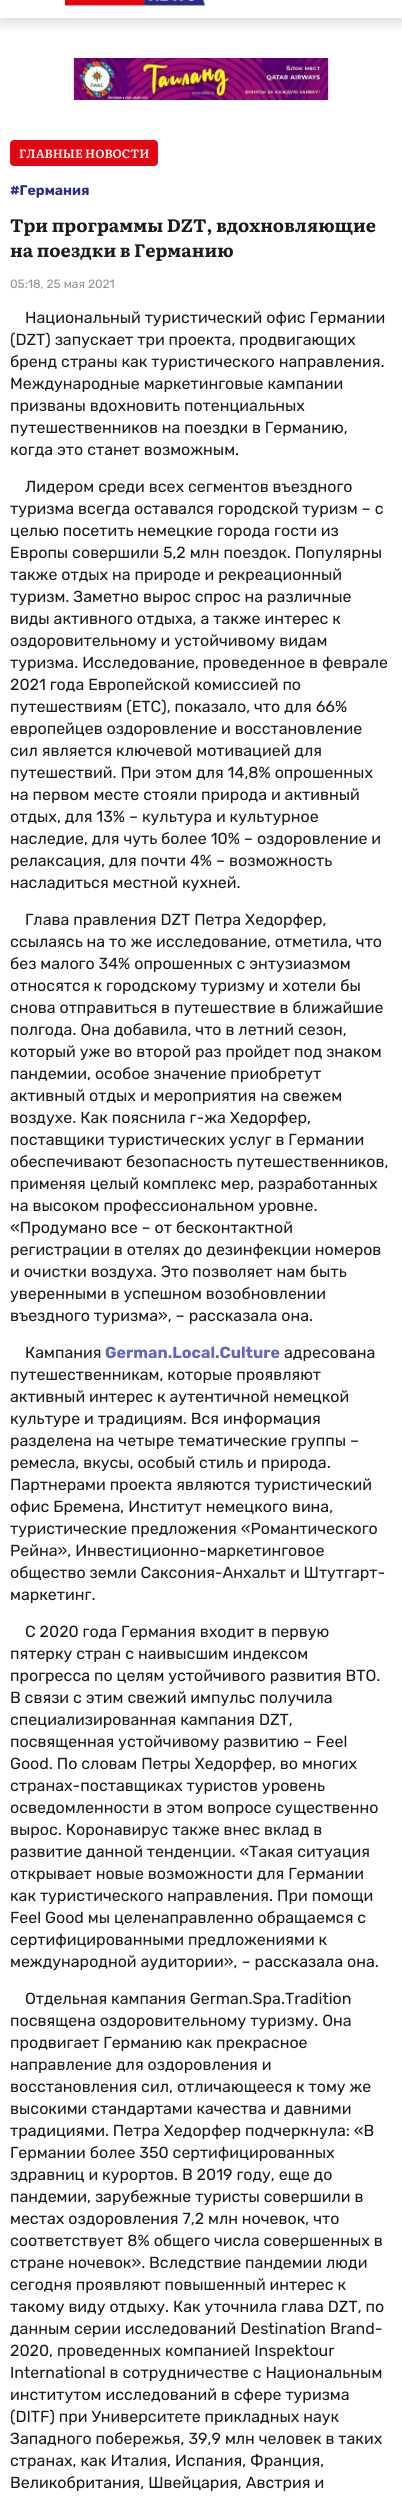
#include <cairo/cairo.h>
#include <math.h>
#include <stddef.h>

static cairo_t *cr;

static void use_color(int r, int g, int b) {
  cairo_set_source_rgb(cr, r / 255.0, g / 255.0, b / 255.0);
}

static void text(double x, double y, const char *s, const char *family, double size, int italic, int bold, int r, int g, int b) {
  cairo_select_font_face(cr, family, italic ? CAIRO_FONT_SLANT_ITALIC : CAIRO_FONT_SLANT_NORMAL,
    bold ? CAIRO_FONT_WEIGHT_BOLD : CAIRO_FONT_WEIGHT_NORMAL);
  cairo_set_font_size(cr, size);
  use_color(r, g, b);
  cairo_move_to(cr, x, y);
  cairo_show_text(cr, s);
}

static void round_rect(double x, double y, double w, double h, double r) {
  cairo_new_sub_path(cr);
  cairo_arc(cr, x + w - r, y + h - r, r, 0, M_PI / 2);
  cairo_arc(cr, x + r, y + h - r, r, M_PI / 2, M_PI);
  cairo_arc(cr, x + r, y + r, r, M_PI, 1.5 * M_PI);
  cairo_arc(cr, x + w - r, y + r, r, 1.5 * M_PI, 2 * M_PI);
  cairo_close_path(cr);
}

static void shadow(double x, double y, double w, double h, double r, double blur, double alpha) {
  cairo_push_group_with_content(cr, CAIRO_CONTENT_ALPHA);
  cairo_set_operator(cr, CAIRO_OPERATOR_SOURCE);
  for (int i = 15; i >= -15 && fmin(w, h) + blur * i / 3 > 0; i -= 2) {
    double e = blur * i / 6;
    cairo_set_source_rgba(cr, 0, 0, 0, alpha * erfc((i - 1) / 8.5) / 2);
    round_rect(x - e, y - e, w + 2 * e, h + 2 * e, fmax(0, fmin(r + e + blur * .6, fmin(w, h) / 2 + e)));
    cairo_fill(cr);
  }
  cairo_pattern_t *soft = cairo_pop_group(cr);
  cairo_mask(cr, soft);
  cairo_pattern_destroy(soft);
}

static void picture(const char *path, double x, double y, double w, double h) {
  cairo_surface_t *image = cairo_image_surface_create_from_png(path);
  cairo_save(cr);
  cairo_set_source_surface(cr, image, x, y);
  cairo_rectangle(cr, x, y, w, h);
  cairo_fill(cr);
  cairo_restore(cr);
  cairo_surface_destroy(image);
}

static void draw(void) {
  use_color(255, 255, 255);
  cairo_paint(cr);
  cairo_save(cr);
  cairo_rectangle(cr, 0, 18, 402, 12);
  cairo_clip(cr);
  use_color(0, 0, 0);
  shadow(0, -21, 402, 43, 0, 7, 0.16);
  cairo_restore(cr);
  picture("img_01.png", 65, 0, 140, 6);
  picture("img_02.png", 73, 58, 256, 42);
  use_color(227, 6, 19);
  round_rect(10, 140, 148, 26, 4);
  cairo_fill(cr);
  text(19, 158, "ГЛАВНЫЕ НОВОСТИ", "Literata SemiBold", 12, 0, 0, 255, 255, 255);
  text(10, 195, "#Германия", "Rubik", 14, 0, 1, 45, 46, 131);
  text(10, 232, "Три программы DZT, вдохновляющие", "Literata", 18, 0, 1, 26, 26, 31);
  text(10, 257, "на поездки в Германию", "Literata", 18, 0, 1, 26, 26, 31);
  text(10, 288, "05:18, 25 мая 2021", "Rubik", 12, 0, 0, 145, 145, 145);
  text(25, 323, "Национальный туристический офис Германии", "Rubik", 16, 0, 0, 26, 26, 31);
  text(10, 345, "(DZT) запускает три проекта, продвигающих", "Rubik", 16, 0, 0, 26, 26, 31);
  text(10, 367, "бренд страны как туристического направления.", "Rubik", 16, 0, 0, 26, 26, 31);
  text(10, 389, "Международные маркетинговые кампании", "Rubik", 16, 0, 0, 26, 26, 31);
  text(10, 411, "призваны вдохновить потенциальных", "Rubik", 16, 0, 0, 26, 26, 31);
  text(10, 433, "путешественников на поездки в Германию,", "Rubik", 16, 0, 0, 26, 26, 31);
  text(10, 455, "когда это станет возможным.", "Rubik", 16, 0, 0, 26, 26, 31);
  text(25, 492, "Лидером среди всех сегментов въездного", "Rubik", 16, 0, 0, 26, 26, 31);
  text(10, 514, "туризма всегда оставался городской туризм – с", "Rubik", 16, 0, 0, 26, 26, 31);
  text(10, 536, "целью посетить немецкие города гости из", "Rubik", 16, 0, 0, 26, 26, 31);
  text(10, 558, "Европы совершили 5,2 млн поездок. Популярны", "Rubik", 16, 0, 0, 26, 26, 31);
  text(10, 580, "также отдых на природе и рекреационный", "Rubik", 16, 0, 0, 26, 26, 31);
  text(10, 602, "туризм. Заметно вырос спрос на различные", "Rubik", 16, 0, 0, 26, 26, 31);
  text(10, 624, "виды активного отдыха, а также интерес к", "Rubik", 16, 0, 0, 26, 26, 31);
  text(10, 646, "оздоровительному и устойчивому видам", "Rubik", 16, 0, 0, 26, 26, 31);
  text(10, 668, "туризма. Исследование, проведенное в феврале", "Rubik", 16, 0, 0, 26, 26, 31);
  text(10, 690, "2021 года Европейской комиссией по", "Rubik", 16, 0, 0, 26, 26, 31);
  text(10, 712, "путешествиям (ETC), показало, что для 66%", "Rubik", 16, 0, 0, 26, 26, 31);
  text(10, 734, "европейцев оздоровление и восстановление", "Rubik", 16, 0, 0, 26, 26, 31);
  text(10, 756, "сил является ключевой мотивацией для", "Rubik", 16, 0, 0, 26, 26, 31);
  text(10, 778, "путешествий. При этом для 14,8% опрошенных", "Rubik", 16, 0, 0, 26, 26, 31);
  text(10, 800, "на первом месте стояли природа и активный", "Rubik", 16, 0, 0, 26, 26, 31);
  text(10, 822, "отдых, для 13% – культура и культурное", "Rubik", 16, 0, 0, 26, 26, 31);
  text(10, 844, "наследие, для чуть более 10% – оздоровление и", "Rubik", 16, 0, 0, 26, 26, 31);
  text(10, 866, "релаксация, для почти 4% – возможность", "Rubik", 16, 0, 0, 26, 26, 31);
  text(10, 888, "насладиться местной кухней.", "Rubik", 16, 0, 0, 26, 26, 31);
  text(25, 925, "Глава правления DZT Петра Хедорфер,", "Rubik", 16, 0, 0, 26, 26, 31);
  text(10, 947, "ссылаясь на то же исследование, отметила, что", "Rubik", 16, 0, 0, 26, 26, 31);
  text(10, 969, "без малого 34% опрошенных с энтузиазмом", "Rubik", 16, 0, 0, 26, 26, 31);
  text(10, 991, "относятся к городскому туризму и хотели бы", "Rubik", 16, 0, 0, 26, 26, 31);
  text(10, 1013, "снова отправиться в путешествие в ближайшие", "Rubik", 16, 0, 0, 26, 26, 31);
  text(10, 1035, "полгода. Она добавила, что в летний сезон,", "Rubik", 16, 0, 0, 26, 26, 31);
  text(10, 1057, "который уже во второй раз пройдет под знаком", "Rubik", 16, 0, 0, 26, 26, 31);
  text(10, 1079, "пандемии, особое значение приобретут", "Rubik", 16, 0, 0, 26, 26, 31);
  text(10, 1101, "активный отдых и мероприятия на свежем", "Rubik", 16, 0, 0, 26, 26, 31);
  text(10, 1123, "воздухе. Как пояснила г-жа Хедорфер,", "Rubik", 16, 0, 0, 26, 26, 31);
  text(10, 1145, "поставщики туристических услуг в Германии", "Rubik", 16, 0, 0, 26, 26, 31);
  text(10, 1167, "обеспечивают безопасность путешественников,", "Rubik", 16, 0, 0, 26, 26, 31);
  text(10, 1189, "применяя целый комплекс мер, разработанных", "Rubik", 16, 0, 0, 26, 26, 31);
  text(10, 1211, "на высоком профессиональном уровне.", "Rubik", 16, 0, 0, 26, 26, 31);
  text(10, 1233, "«Продумано все – от бесконтактной", "Rubik", 16, 0, 0, 26, 26, 31);
  text(10, 1255, "регистрации в отелях до дезинфекции номеров", "Rubik", 16, 0, 0, 26, 26, 31);
  text(10, 1277, "и очистки воздуха. Это позволяет нам быть", "Rubik", 16, 0, 0, 26, 26, 31);
  text(10, 1299, "уверенными в успешном возобновлении", "Rubik", 16, 0, 0, 26, 26, 31);
  text(10, 1321, "въездного туризма», – рассказала она.", "Rubik", 16, 0, 0, 26, 26, 31);
  text(25, 1358, "Кампания", "Rubik", 16, 0, 0, 26, 26, 31);
  text(105, 1358, "German.Local.Culture", "Rubik", 16, 0, 1, 100, 101, 192);
  text(284, 1358, "адресована", "Rubik", 16, 0, 0, 26, 26, 31);
  text(10, 1380, "путешественникам, которые проявляют", "Rubik", 16, 0, 0, 26, 26, 31);
  text(10, 1402, "активный интерес к аутентичной немецкой", "Rubik", 16, 0, 0, 26, 26, 31);
  text(10, 1424, "культуре и традициям. Вся информация", "Rubik", 16, 0, 0, 26, 26, 31);
  text(10, 1446, "разделена на четыре тематические группы –", "Rubik", 16, 0, 0, 26, 26, 31);
  text(10, 1468, "ремесла, вкусы, особый стиль и природа.", "Rubik", 16, 0, 0, 26, 26, 31);
  text(10, 1490, "Партнерами проекта являются туристический", "Rubik", 16, 0, 0, 26, 26, 31);
  text(10, 1512, "офис Бремена, Институт немецкого вина,", "Rubik", 16, 0, 0, 26, 26, 31);
  text(10, 1534, "туристические предложения «Романтического", "Rubik", 16, 0, 0, 26, 26, 31);
  text(10, 1556, "Рейна», Инвестиционно-маркетинговое", "Rubik", 16, 0, 0, 26, 26, 31);
  text(10, 1578, "общество земли Саксония-Анхальт и Штутгарт-", "Rubik", 16, 0, 0, 26, 26, 31);
  text(10, 1600, "маркетинг.", "Rubik", 16, 0, 0, 26, 26, 31);
  text(25, 1637, "С 2020 года Германия входит в первую", "Rubik", 16, 0, 0, 26, 26, 31);
  text(10, 1659, "пятерку стран с наивысшим индексом", "Rubik", 16, 0, 0, 26, 26, 31);
  text(10, 1681, "прогресса по целям устойчивого развития ВТО.", "Rubik", 16, 0, 0, 26, 26, 31);
  text(10, 1703, "В связи с этим свежий импульс получила", "Rubik", 16, 0, 0, 26, 26, 31);
  text(10, 1725, "специализированная кампания DZT,", "Rubik", 16, 0, 0, 26, 26, 31);
  text(10, 1747, "посвященная устойчивому развитию – Feel", "Rubik", 16, 0, 0, 26, 26, 31);
  text(10, 1769, "Good. По словам Петры Хедорфер, во многих", "Rubik", 16, 0, 0, 26, 26, 31);
  text(10, 1791, "странах-поставщиках туристов уровень", "Rubik", 16, 0, 0, 26, 26, 31);
  text(10, 1813, "осведомленности в этом вопросе существенно", "Rubik", 16, 0, 0, 26, 26, 31);
  text(10, 1835, "вырос. Коронавирус также внес вклад в", "Rubik", 16, 0, 0, 26, 26, 31);
  text(10, 1857, "развитие данной тенденции. «Такая ситуация", "Rubik", 16, 0, 0, 26, 26, 31);
  text(10, 1879, "открывает новые возможности для Германии", "Rubik", 16, 0, 0, 26, 26, 31);
  text(10, 1901, "как туристического направления. При помощи", "Rubik", 16, 0, 0, 26, 26, 31);
  text(10, 1923, "Feel Good мы целенаправленно обращаемся с", "Rubik", 16, 0, 0, 26, 26, 31);
  text(10, 1945, "сертифицированными предложениями к", "Rubik", 16, 0, 0, 26, 26, 31);
  text(10, 1967, "международной аудитории», – рассказала она.", "Rubik", 16, 0, 0, 26, 26, 31);
  text(25, 2004, "Отдельная кампания German.Spa.Tradition", "Rubik", 16, 0, 0, 26, 26, 31);
  text(10, 2026, "посвящена оздоровительному туризму. Она", "Rubik", 16, 0, 0, 26, 26, 31);
  text(10, 2048, "продвигает Германию как прекрасное", "Rubik", 16, 0, 0, 26, 26, 31);
  text(10, 2070, "направление для оздоровления и", "Rubik", 16, 0, 0, 26, 26, 31);
  text(10, 2092, "восстановления сил, отличающееся к тому же", "Rubik", 16, 0, 0, 26, 26, 31);
  text(10, 2114, "высокими стандартами качества и давними", "Rubik", 16, 0, 0, 26, 26, 31);
  text(10, 2136, "традициями. Петра Хедорфер подчеркнула: «В", "Rubik", 16, 0, 0, 26, 26, 31);
  text(10, 2158, "Германии более 350 сертифицированных", "Rubik", 16, 0, 0, 26, 26, 31);
  text(10, 2180, "здравниц и курортов. В 2019 году, еще до", "Rubik", 16, 0, 0, 26, 26, 31);
  text(10, 2202, "пандемии, зарубежные туристы совершили в", "Rubik", 16, 0, 0, 26, 26, 31);
  text(10, 2224, "местах оздоровления 7,2 млн ночевок, что", "Rubik", 16, 0, 0, 26, 26, 31);
  text(10, 2246, "соответствует 8% общего числа совершенных в", "Rubik", 16, 0, 0, 26, 26, 31);
  text(10, 2268, "стране ночевок». Вследствие пандемии люди", "Rubik", 16, 0, 0, 26, 26, 31);
  text(10, 2290, "сегодня проявляют повышенный интерес к", "Rubik", 16, 0, 0, 26, 26, 31);
  text(10, 2312, "такому виду отдыху. Как уточнила глава DZT, по", "Rubik", 16, 0, 0, 26, 26, 31);
  text(10, 2334, "данным серии исследований Destination Brand-", "Rubik", 16, 0, 0, 26, 26, 31);
  text(10, 2356, "2020, проведенных компанией Inspektour", "Rubik", 16, 0, 0, 26, 26, 31);
  text(10, 2378, "International в сотрудничестве с Национальным", "Rubik", 16, 0, 0, 26, 26, 31);
  text(10, 2400, "институтом исследований в сфере туризма", "Rubik", 16, 0, 0, 26, 26, 31);
  text(10, 2422, "(DITF) при Университете прикладных наук", "Rubik", 16, 0, 0, 26, 26, 31);
  text(10, 2444, "Западного побережья, 39,9 млн человек в таких", "Rubik", 16, 0, 0, 26, 26, 31);
  text(10, 2466, "странах, как Италия, Испания, Франция,", "Rubik", 16, 0, 0, 26, 26, 31);
  text(10, 2488, "Великобритания, Швейцария, Австрия и", "Rubik", 16, 0, 0, 26, 26, 31);
}

int main(void) {
  cairo_surface_t *surface = cairo_image_surface_create(CAIRO_FORMAT_RGB24, 402, 2499);
  cr = cairo_create(surface);
  cairo_font_options_t *options = cairo_font_options_create();
  cairo_font_options_set_hint_metrics(options, CAIRO_HINT_METRICS_OFF);
  cairo_font_options_set_hint_style(options, CAIRO_HINT_STYLE_NONE);
  cairo_set_font_options(cr, options);
  cairo_set_miter_limit(cr, 4);
  draw();
  cairo_surface_write_to_png(surface, "out.png");
  cairo_font_options_destroy(options);
  cairo_destroy(cr);
  cairo_surface_destroy(surface);
  return 0;
}
